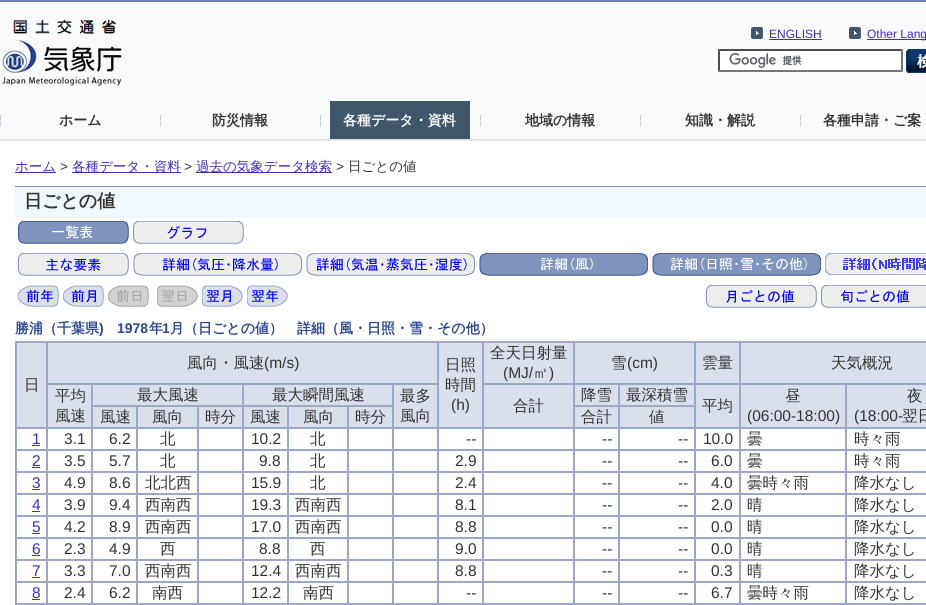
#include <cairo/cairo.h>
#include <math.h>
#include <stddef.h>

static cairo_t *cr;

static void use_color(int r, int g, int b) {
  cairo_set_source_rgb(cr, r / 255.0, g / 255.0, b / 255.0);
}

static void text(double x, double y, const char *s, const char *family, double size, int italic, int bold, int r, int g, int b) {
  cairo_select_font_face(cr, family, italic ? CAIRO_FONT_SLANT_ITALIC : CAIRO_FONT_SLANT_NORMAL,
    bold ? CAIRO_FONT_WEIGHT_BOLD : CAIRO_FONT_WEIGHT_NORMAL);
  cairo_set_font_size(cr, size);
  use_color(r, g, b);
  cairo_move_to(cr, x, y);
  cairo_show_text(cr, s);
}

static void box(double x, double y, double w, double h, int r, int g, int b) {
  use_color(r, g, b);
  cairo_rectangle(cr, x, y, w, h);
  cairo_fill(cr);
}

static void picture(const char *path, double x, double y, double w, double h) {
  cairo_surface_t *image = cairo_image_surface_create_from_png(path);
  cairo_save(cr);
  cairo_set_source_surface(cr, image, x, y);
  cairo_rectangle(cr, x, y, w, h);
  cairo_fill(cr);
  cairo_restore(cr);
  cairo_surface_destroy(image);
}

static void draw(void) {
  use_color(249, 250, 251);
  cairo_paint(cr);
  picture("img_01.png", 0, 139, 926, 2);
  box(0, 0, 926, 2, 113, 130, 175);
  picture("img_02.png", 2, 19, 120, 67);
  picture("img_03.png", 751, 27, 12, 12);
  box(769, 39, 53, 1, 67, 45, 178);
  picture("img_03.png", 849, 27, 12, 12);
  box(867, 39, 59, 1, 67, 45, 178);
  box(718, 49, 185, 23, 255, 255, 255);
  picture("img_04.png", 729, 53, 73, 15);
  use_color(79, 79, 79);
  cairo_new_path(cr);
  cairo_move_to(cr, 718, 49);
  cairo_line_to(cr, 903, 49);
  cairo_line_to(cr, 901, 51);
  cairo_line_to(cr, 720, 51);
  cairo_close_path(cr);
  cairo_fill(cr);
  use_color(118, 118, 118);
  cairo_new_path(cr);
  cairo_move_to(cr, 903, 49);
  cairo_line_to(cr, 903, 72);
  cairo_line_to(cr, 901, 70);
  cairo_line_to(cr, 901, 51);
  cairo_close_path(cr);
  cairo_fill(cr);
  cairo_new_path(cr);
  cairo_move_to(cr, 903, 72);
  cairo_line_to(cr, 718, 72);
  cairo_line_to(cr, 720, 70);
  cairo_line_to(cr, 901, 70);
  cairo_close_path(cr);
  cairo_fill(cr);
  use_color(79, 79, 79);
  cairo_new_path(cr);
  cairo_move_to(cr, 718, 72);
  cairo_line_to(cr, 718, 49);
  cairo_line_to(cr, 720, 51);
  cairo_line_to(cr, 720, 70);
  cairo_close_path(cr);
  cairo_fill(cr);
  picture("img_05.png", 906, 49, 20, 24);
  picture("img_06.png", 0, 115, 1, 11);
  picture("img_06.png", 160, 115, 1, 11);
  picture("img_06.png", 320, 115, 1, 11);
  box(330, 101, 140, 38, 64, 86, 106);
  picture("img_06.png", 480, 115, 1, 11);
  picture("img_06.png", 640, 115, 1, 11);
  picture("img_06.png", 800, 115, 1, 11);
  box(0, 142, 926, 463, 255, 255, 255);
  box(15, 172, 41, 1, 67, 45, 178);
  box(72, 172, 109, 1, 67, 45, 178);
  box(196, 172, 136, 1, 67, 45, 178);
  box(15, 187, 911, 31, 240, 248, 255);
  box(15, 186, 911, 1, 127, 149, 189);
  picture("img_07.png", 18, 221, 111, 23);
  picture("img_08.png", 133, 221, 111, 23);
  picture("img_09.png", 18, 253, 111, 23);
  picture("img_10.png", 133, 253, 169, 23);
  picture("img_11.png", 306, 253, 169, 23);
  picture("img_12.png", 479, 253, 169, 23);
  picture("img_13.png", 652, 253, 169, 23);
  picture("img_14.png", 825, 253, 101, 22);
  picture("img_15.png", 18, 285, 41, 22);
  picture("img_16.png", 63, 285, 41, 22);
  picture("img_17.png", 108, 285, 41, 22);
  picture("img_18.png", 157, 285, 41, 22);
  picture("img_19.png", 202, 285, 41, 22);
  picture("img_20.png", 247, 285, 41, 22);
  picture("img_21.png", 706, 285, 111, 23);
  picture("img_22.png", 821, 285, 105, 23);
  box(17, 343, 29, 84, 218, 223, 236);
  box(739, 341, 187, 2, 155, 168, 202);
  box(845, 383, 81, 2, 155, 168, 202);
  box(845, 427, 81, 2, 155, 168, 202);
  box(845, 449, 81, 2, 155, 168, 202);
  box(845, 471, 81, 2, 155, 168, 202);
  box(845, 493, 81, 2, 155, 168, 202);
  box(845, 515, 81, 2, 155, 168, 202);
  box(845, 537, 81, 2, 155, 168, 202);
  box(845, 559, 81, 2, 155, 168, 202);
  box(845, 581, 81, 2, 155, 168, 202);
  box(15, 603, 911, 2, 155, 168, 202);
  box(845, 581, 2, 24, 155, 168, 202);
  box(739, 581, 108, 2, 155, 168, 202);
  box(845, 559, 2, 24, 155, 168, 202);
  box(739, 559, 108, 2, 155, 168, 202);
  box(845, 537, 2, 24, 155, 168, 202);
  box(739, 537, 108, 2, 155, 168, 202);
  box(845, 515, 2, 24, 155, 168, 202);
  box(739, 515, 108, 2, 155, 168, 202);
  box(845, 493, 2, 24, 155, 168, 202);
  box(739, 493, 108, 2, 155, 168, 202);
  box(845, 471, 2, 24, 155, 168, 202);
  box(739, 471, 108, 2, 155, 168, 202);
  box(845, 449, 2, 24, 155, 168, 202);
  box(739, 449, 108, 2, 155, 168, 202);
  box(845, 427, 2, 24, 155, 168, 202);
  box(739, 427, 108, 2, 155, 168, 202);
  box(845, 383, 2, 46, 155, 168, 202);
  box(739, 383, 108, 2, 155, 168, 202);
  box(739, 581, 2, 24, 155, 168, 202);
  box(694, 581, 47, 2, 155, 168, 202);
  box(739, 559, 2, 24, 155, 168, 202);
  box(694, 559, 47, 2, 155, 168, 202);
  box(739, 537, 2, 24, 155, 168, 202);
  box(694, 537, 47, 2, 155, 168, 202);
  box(739, 515, 2, 24, 155, 168, 202);
  box(694, 515, 47, 2, 155, 168, 202);
  box(739, 493, 2, 24, 155, 168, 202);
  box(694, 493, 47, 2, 155, 168, 202);
  box(739, 471, 2, 24, 155, 168, 202);
  box(694, 471, 47, 2, 155, 168, 202);
  box(739, 449, 2, 24, 155, 168, 202);
  box(694, 449, 47, 2, 155, 168, 202);
  box(739, 427, 2, 24, 155, 168, 202);
  box(694, 427, 47, 2, 155, 168, 202);
  box(739, 383, 2, 46, 155, 168, 202);
  box(694, 383, 47, 2, 155, 168, 202);
  box(739, 341, 2, 44, 155, 168, 202);
  box(694, 341, 47, 2, 155, 168, 202);
  box(618, 405, 78, 2, 155, 168, 202);
  box(694, 581, 2, 24, 155, 168, 202);
  box(618, 581, 78, 2, 155, 168, 202);
  box(694, 559, 2, 24, 155, 168, 202);
  box(618, 559, 78, 2, 155, 168, 202);
  box(694, 537, 2, 24, 155, 168, 202);
  box(618, 537, 78, 2, 155, 168, 202);
  box(694, 515, 2, 24, 155, 168, 202);
  box(618, 515, 78, 2, 155, 168, 202);
  box(694, 493, 2, 24, 155, 168, 202);
  box(618, 493, 78, 2, 155, 168, 202);
  box(694, 471, 2, 24, 155, 168, 202);
  box(618, 471, 78, 2, 155, 168, 202);
  box(694, 449, 2, 24, 155, 168, 202);
  box(618, 449, 78, 2, 155, 168, 202);
  box(694, 427, 2, 24, 155, 168, 202);
  box(618, 427, 78, 2, 155, 168, 202);
  box(694, 383, 2, 46, 155, 168, 202);
  box(618, 383, 78, 2, 155, 168, 202);
  box(694, 341, 2, 44, 155, 168, 202);
  box(573, 341, 123, 2, 155, 168, 202);
  box(618, 581, 2, 24, 155, 168, 202);
  box(573, 581, 47, 2, 155, 168, 202);
  box(618, 559, 2, 24, 155, 168, 202);
  box(573, 559, 47, 2, 155, 168, 202);
  box(618, 537, 2, 24, 155, 168, 202);
  box(573, 537, 47, 2, 155, 168, 202);
  box(618, 515, 2, 24, 155, 168, 202);
  box(573, 515, 47, 2, 155, 168, 202);
  box(618, 493, 2, 24, 155, 168, 202);
  box(573, 493, 47, 2, 155, 168, 202);
  box(618, 471, 2, 24, 155, 168, 202);
  box(573, 471, 47, 2, 155, 168, 202);
  box(618, 449, 2, 24, 155, 168, 202);
  box(573, 449, 47, 2, 155, 168, 202);
  box(618, 427, 2, 24, 155, 168, 202);
  box(573, 427, 47, 2, 155, 168, 202);
  box(618, 405, 2, 24, 155, 168, 202);
  box(573, 405, 47, 2, 155, 168, 202);
  box(618, 383, 2, 24, 155, 168, 202);
  box(573, 383, 47, 2, 155, 168, 202);
  box(573, 581, 2, 24, 155, 168, 202);
  box(482, 581, 93, 2, 155, 168, 202);
  box(573, 559, 2, 24, 155, 168, 202);
  box(482, 559, 93, 2, 155, 168, 202);
  box(573, 537, 2, 24, 155, 168, 202);
  box(482, 537, 93, 2, 155, 168, 202);
  box(573, 515, 2, 24, 155, 168, 202);
  box(482, 515, 93, 2, 155, 168, 202);
  box(573, 493, 2, 24, 155, 168, 202);
  box(482, 493, 93, 2, 155, 168, 202);
  box(573, 471, 2, 24, 155, 168, 202);
  box(482, 471, 93, 2, 155, 168, 202);
  box(573, 449, 2, 24, 155, 168, 202);
  box(482, 449, 93, 2, 155, 168, 202);
  box(573, 427, 2, 24, 155, 168, 202);
  box(482, 427, 93, 2, 155, 168, 202);
  box(573, 405, 2, 24, 155, 168, 202);
  box(573, 383, 2, 24, 155, 168, 202);
  box(482, 383, 93, 2, 155, 168, 202);
  box(573, 341, 2, 44, 155, 168, 202);
  box(482, 341, 93, 2, 155, 168, 202);
  box(482, 581, 2, 24, 155, 168, 202);
  box(437, 581, 47, 2, 155, 168, 202);
  box(482, 559, 2, 24, 155, 168, 202);
  box(437, 559, 47, 2, 155, 168, 202);
  box(482, 537, 2, 24, 155, 168, 202);
  box(437, 537, 47, 2, 155, 168, 202);
  box(482, 515, 2, 24, 155, 168, 202);
  box(437, 515, 47, 2, 155, 168, 202);
  box(482, 493, 2, 24, 155, 168, 202);
  box(437, 493, 47, 2, 155, 168, 202);
  box(482, 471, 2, 24, 155, 168, 202);
  box(437, 471, 47, 2, 155, 168, 202);
  box(482, 449, 2, 24, 155, 168, 202);
  box(437, 449, 47, 2, 155, 168, 202);
  box(482, 427, 2, 24, 155, 168, 202);
  box(437, 427, 47, 2, 155, 168, 202);
  box(482, 383, 2, 46, 155, 168, 202);
  box(482, 341, 2, 44, 155, 168, 202);
  box(437, 341, 47, 2, 155, 168, 202);
  box(392, 383, 47, 2, 155, 168, 202);
  box(437, 581, 2, 24, 155, 168, 202);
  box(392, 581, 47, 2, 155, 168, 202);
  box(437, 559, 2, 24, 155, 168, 202);
  box(392, 559, 47, 2, 155, 168, 202);
  box(437, 537, 2, 24, 155, 168, 202);
  box(392, 537, 47, 2, 155, 168, 202);
  box(437, 515, 2, 24, 155, 168, 202);
  box(392, 515, 47, 2, 155, 168, 202);
  box(437, 493, 2, 24, 155, 168, 202);
  box(392, 493, 47, 2, 155, 168, 202);
  box(437, 471, 2, 24, 155, 168, 202);
  box(392, 471, 47, 2, 155, 168, 202);
  box(437, 449, 2, 24, 155, 168, 202);
  box(392, 449, 47, 2, 155, 168, 202);
  box(437, 427, 2, 24, 155, 168, 202);
  box(392, 427, 47, 2, 155, 168, 202);
  box(437, 341, 2, 88, 155, 168, 202);
  box(46, 341, 393, 2, 155, 168, 202);
  box(347, 405, 47, 2, 155, 168, 202);
  box(392, 581, 2, 24, 155, 168, 202);
  box(347, 581, 47, 2, 155, 168, 202);
  box(392, 559, 2, 24, 155, 168, 202);
  box(347, 559, 47, 2, 155, 168, 202);
  box(392, 537, 2, 24, 155, 168, 202);
  box(347, 537, 47, 2, 155, 168, 202);
  box(392, 515, 2, 24, 155, 168, 202);
  box(347, 515, 47, 2, 155, 168, 202);
  box(392, 493, 2, 24, 155, 168, 202);
  box(347, 493, 47, 2, 155, 168, 202);
  box(392, 471, 2, 24, 155, 168, 202);
  box(347, 471, 47, 2, 155, 168, 202);
  box(392, 449, 2, 24, 155, 168, 202);
  box(347, 449, 47, 2, 155, 168, 202);
  box(392, 427, 2, 24, 155, 168, 202);
  box(347, 427, 47, 2, 155, 168, 202);
  box(392, 383, 2, 46, 155, 168, 202);
  box(242, 383, 152, 2, 155, 168, 202);
  box(347, 581, 2, 24, 155, 168, 202);
  box(287, 581, 62, 2, 155, 168, 202);
  box(347, 559, 2, 24, 155, 168, 202);
  box(287, 559, 62, 2, 155, 168, 202);
  box(347, 537, 2, 24, 155, 168, 202);
  box(287, 537, 62, 2, 155, 168, 202);
  box(347, 515, 2, 24, 155, 168, 202);
  box(287, 515, 62, 2, 155, 168, 202);
  box(347, 493, 2, 24, 155, 168, 202);
  box(287, 493, 62, 2, 155, 168, 202);
  box(347, 471, 2, 24, 155, 168, 202);
  box(287, 471, 62, 2, 155, 168, 202);
  box(347, 449, 2, 24, 155, 168, 202);
  box(287, 449, 62, 2, 155, 168, 202);
  box(347, 427, 2, 24, 155, 168, 202);
  box(287, 427, 62, 2, 155, 168, 202);
  box(347, 405, 2, 24, 155, 168, 202);
  box(287, 405, 62, 2, 155, 168, 202);
  box(287, 581, 2, 24, 155, 168, 202);
  box(242, 581, 47, 2, 155, 168, 202);
  box(287, 559, 2, 24, 155, 168, 202);
  box(242, 559, 47, 2, 155, 168, 202);
  box(287, 537, 2, 24, 155, 168, 202);
  box(242, 537, 47, 2, 155, 168, 202);
  box(287, 515, 2, 24, 155, 168, 202);
  box(242, 515, 47, 2, 155, 168, 202);
  box(287, 493, 2, 24, 155, 168, 202);
  box(242, 493, 47, 2, 155, 168, 202);
  box(287, 471, 2, 24, 155, 168, 202);
  box(242, 471, 47, 2, 155, 168, 202);
  box(287, 449, 2, 24, 155, 168, 202);
  box(242, 449, 47, 2, 155, 168, 202);
  box(287, 427, 2, 24, 155, 168, 202);
  box(242, 427, 47, 2, 155, 168, 202);
  box(287, 405, 2, 24, 155, 168, 202);
  box(242, 405, 47, 2, 155, 168, 202);
  box(242, 581, 2, 24, 155, 168, 202);
  box(197, 581, 47, 2, 155, 168, 202);
  box(242, 559, 2, 24, 155, 168, 202);
  box(197, 559, 47, 2, 155, 168, 202);
  box(242, 537, 2, 24, 155, 168, 202);
  box(197, 537, 47, 2, 155, 168, 202);
  box(242, 515, 2, 24, 155, 168, 202);
  box(197, 515, 47, 2, 155, 168, 202);
  box(242, 493, 2, 24, 155, 168, 202);
  box(197, 493, 47, 2, 155, 168, 202);
  box(242, 471, 2, 24, 155, 168, 202);
  box(197, 471, 47, 2, 155, 168, 202);
  box(242, 449, 2, 24, 155, 168, 202);
  box(197, 449, 47, 2, 155, 168, 202);
  box(242, 427, 2, 24, 155, 168, 202);
  box(197, 427, 47, 2, 155, 168, 202);
  box(242, 405, 2, 24, 155, 168, 202);
  box(197, 405, 47, 2, 155, 168, 202);
  box(242, 383, 2, 24, 155, 168, 202);
  box(91, 383, 153, 2, 155, 168, 202);
  box(197, 581, 2, 24, 155, 168, 202);
  box(136, 581, 63, 2, 155, 168, 202);
  box(197, 559, 2, 24, 155, 168, 202);
  box(136, 559, 63, 2, 155, 168, 202);
  box(197, 537, 2, 24, 155, 168, 202);
  box(136, 537, 63, 2, 155, 168, 202);
  box(197, 515, 2, 24, 155, 168, 202);
  box(136, 515, 63, 2, 155, 168, 202);
  box(197, 493, 2, 24, 155, 168, 202);
  box(136, 493, 63, 2, 155, 168, 202);
  box(197, 471, 2, 24, 155, 168, 202);
  box(136, 471, 63, 2, 155, 168, 202);
  box(197, 449, 2, 24, 155, 168, 202);
  box(136, 449, 63, 2, 155, 168, 202);
  box(197, 427, 2, 24, 155, 168, 202);
  box(136, 427, 63, 2, 155, 168, 202);
  box(197, 405, 2, 24, 155, 168, 202);
  box(136, 405, 63, 2, 155, 168, 202);
  box(136, 581, 2, 24, 155, 168, 202);
  box(91, 581, 47, 2, 155, 168, 202);
  box(136, 559, 2, 24, 155, 168, 202);
  box(91, 559, 47, 2, 155, 168, 202);
  box(136, 537, 2, 24, 155, 168, 202);
  box(91, 537, 47, 2, 155, 168, 202);
  box(136, 515, 2, 24, 155, 168, 202);
  box(91, 515, 47, 2, 155, 168, 202);
  box(136, 493, 2, 24, 155, 168, 202);
  box(91, 493, 47, 2, 155, 168, 202);
  box(136, 471, 2, 24, 155, 168, 202);
  box(91, 471, 47, 2, 155, 168, 202);
  box(136, 449, 2, 24, 155, 168, 202);
  box(91, 449, 47, 2, 155, 168, 202);
  box(136, 427, 2, 24, 155, 168, 202);
  box(91, 427, 47, 2, 155, 168, 202);
  box(136, 405, 2, 24, 155, 168, 202);
  box(91, 405, 47, 2, 155, 168, 202);
  box(91, 581, 2, 24, 155, 168, 202);
  box(46, 581, 47, 2, 155, 168, 202);
  box(91, 559, 2, 24, 155, 168, 202);
  box(46, 559, 47, 2, 155, 168, 202);
  box(91, 537, 2, 24, 155, 168, 202);
  box(46, 537, 47, 2, 155, 168, 202);
  box(91, 515, 2, 24, 155, 168, 202);
  box(46, 515, 47, 2, 155, 168, 202);
  box(91, 493, 2, 24, 155, 168, 202);
  box(46, 493, 47, 2, 155, 168, 202);
  box(91, 471, 2, 24, 155, 168, 202);
  box(46, 471, 47, 2, 155, 168, 202);
  box(91, 449, 2, 24, 155, 168, 202);
  box(46, 449, 47, 2, 155, 168, 202);
  box(91, 427, 2, 24, 155, 168, 202);
  box(46, 427, 47, 2, 155, 168, 202);
  box(91, 405, 2, 24, 155, 168, 202);
  box(91, 383, 2, 24, 155, 168, 202);
  box(46, 383, 47, 2, 155, 168, 202);
  box(46, 581, 2, 24, 155, 168, 202);
  box(15, 581, 33, 2, 155, 168, 202);
  box(46, 559, 2, 24, 155, 168, 202);
  box(15, 559, 33, 2, 155, 168, 202);
  box(46, 537, 2, 24, 155, 168, 202);
  box(15, 537, 33, 2, 155, 168, 202);
  box(46, 515, 2, 24, 155, 168, 202);
  box(15, 515, 33, 2, 155, 168, 202);
  box(46, 493, 2, 24, 155, 168, 202);
  box(15, 493, 33, 2, 155, 168, 202);
  box(46, 471, 2, 24, 155, 168, 202);
  box(15, 471, 33, 2, 155, 168, 202);
  box(46, 449, 2, 24, 155, 168, 202);
  box(15, 449, 33, 2, 155, 168, 202);
  box(46, 427, 2, 24, 155, 168, 202);
  box(15, 427, 33, 2, 155, 168, 202);
  box(46, 383, 2, 46, 155, 168, 202);
  box(46, 341, 2, 44, 155, 168, 202);
  box(15, 341, 33, 2, 155, 168, 202);
  box(15, 581, 2, 24, 155, 168, 202);
  box(15, 559, 2, 24, 155, 168, 202);
  box(15, 537, 2, 24, 155, 168, 202);
  box(15, 515, 2, 24, 155, 168, 202);
  box(15, 493, 2, 24, 155, 168, 202);
  box(15, 471, 2, 24, 155, 168, 202);
  box(15, 449, 2, 24, 155, 168, 202);
  box(15, 427, 2, 24, 155, 168, 202);
  box(15, 341, 2, 88, 155, 168, 202);
  box(48, 343, 389, 40, 218, 223, 236);
  box(439, 343, 43, 84, 218, 223, 236);
  box(484, 343, 89, 40, 218, 223, 236);
  box(575, 343, 119, 40, 218, 223, 236);
  box(696, 343, 43, 40, 218, 223, 236);
  box(741, 343, 185, 40, 218, 223, 236);
  box(48, 385, 43, 42, 218, 223, 236);
  box(93, 385, 149, 20, 218, 223, 236);
  box(244, 385, 148, 20, 218, 223, 236);
  box(394, 385, 43, 42, 218, 223, 236);
  box(484, 385, 89, 42, 218, 223, 236);
  box(575, 385, 43, 20, 218, 223, 236);
  box(620, 385, 74, 20, 218, 223, 236);
  box(696, 385, 43, 42, 218, 223, 236);
  box(741, 385, 104, 42, 218, 223, 236);
  box(847, 385, 79, 42, 218, 223, 236);
  box(93, 407, 43, 20, 218, 223, 236);
  box(138, 407, 59, 20, 218, 223, 236);
  box(199, 407, 43, 20, 218, 223, 236);
  box(244, 407, 43, 20, 218, 223, 236);
  box(289, 407, 58, 20, 218, 223, 236);
  box(349, 407, 43, 20, 218, 223, 236);
  box(575, 407, 43, 20, 218, 223, 236);
  box(620, 407, 74, 20, 218, 223, 236);
  box(32, 445, 8, 1, 67, 45, 178);
  box(32, 467, 8, 1, 67, 45, 178);
  box(32, 489, 8, 1, 67, 45, 178);
  box(32, 511, 8, 1, 67, 45, 178);
  box(32, 533, 8, 1, 67, 45, 178);
  box(32, 555, 8, 1, 67, 45, 178);
  box(32, 577, 8, 1, 67, 45, 178);
  box(32, 599, 8, 1, 67, 45, 178);
  text(769, 38, "ENGLISH", "Liberation Sans", 12, 0, 0, 67, 45, 178);
  text(867, 38, "Other Lang", "Liberation Sans", 12, 0, 0, 67, 45, 178);
  text(59, 125, "ホーム", "WenQuanYi Zen Hei", 14, 0, 1, 51, 51, 51);
  text(212, 125, "防災情報", "WenQuanYi Zen Hei", 14, 0, 1, 51, 51, 51);
  text(343, 125, "各種データ・資料", "WenQuanYi Zen Hei", 14, 0, 1, 255, 255, 255);
  text(525, 125, "地域の情報", "WenQuanYi Zen Hei", 14, 0, 1, 51, 51, 51);
  text(685, 125, "知識・解説", "WenQuanYi Zen Hei", 14, 0, 1, 51, 51, 51);
  text(823, 125, "各種申請・ご案", "WenQuanYi Zen Hei", 14, 0, 1, 51, 51, 51);
  text(15, 171, "ホーム", "WenQuanYi Zen Hei Medium", 13.5, 0, 0, 67, 45, 178);
  text(60, 171, ">", "Liberation Sans", 13.5, 0, 0, 51, 51, 51);
  text(72, 171, "各種データ・資料", "WenQuanYi Zen Hei Medium", 13.5, 0, 0, 67, 45, 178);
  text(184, 171, ">", "Liberation Sans", 13.5, 0, 0, 51, 51, 51);
  text(196, 171, "過去の気象データ検索", "WenQuanYi Zen Hei Medium", 13.5, 0, 0, 67, 45, 178);
  text(336, 171, ">", "Liberation Sans", 13.5, 0, 0, 51, 51, 51);
  text(348, 171, "日ごとの値", "WenQuanYi Zen Hei Medium", 13.5, 0, 0, 51, 51, 51);
  text(24, 207, "日ごとの値", "WenQuanYi Zen Hei", 18, 0, 1, 51, 51, 51);
  text(15, 333, "勝浦（千葉県", "WenQuanYi Zen Hei", 14, 0, 1, 43, 71, 142);
  text(99, 333, ")", "Liberation Sans", 14, 0, 1, 43, 71, 142);
  text(117, 333, "1978", "Liberation Sans", 14, 0, 1, 43, 71, 142);
  text(149, 333, "年", "WenQuanYi Zen Hei", 14, 0, 1, 43, 71, 142);
  text(162, 333, "1", "Liberation Sans", 14, 0, 1, 43, 71, 142);
  text(170, 333, "月（日ごとの値）　詳細（風・日照・雪・その他）", "WenQuanYi Zen Hei", 14, 0, 1, 43, 71, 142);
  text(24, 390, "日", "WenQuanYi Zen Hei Medium", 15.5, 0, 0, 51, 51, 51);
  text(187, 368, "風向・風速", "WenQuanYi Zen Hei Medium", 15.5, 0, 0, 51, 51, 51);
  text(264, 368, "(m/s)", "Liberation Sans", 15.5, 0, 0, 51, 51, 51);
  text(445, 370, "日照", "WenQuanYi Zen Hei Medium", 15.5, 0, 0, 51, 51, 51);
  text(445, 390, "時間", "WenQuanYi Zen Hei Medium", 15.5, 0, 0, 51, 51, 51);
  text(451, 410, "(h)", "Liberation Sans", 15.5, 0, 0, 51, 51, 51);
  text(490, 358, "全天日射量", "WenQuanYi Zen Hei Medium", 15.5, 0, 0, 51, 51, 51);
  text(503, 378, "(MJ/", "Liberation Sans", 15.5, 0, 0, 51, 51, 51);
  text(533, 378, "㎡", "WenQuanYi Zen Hei Medium", 15.5, 0, 0, 51, 51, 51);
  text(549, 378, ")", "Liberation Sans", 15.5, 0, 0, 51, 51, 51);
  text(611, 368, "雪", "WenQuanYi Zen Hei Medium", 15.5, 0, 0, 51, 51, 51);
  text(627, 368, "(cm)", "Liberation Sans", 15.5, 0, 0, 51, 51, 51);
  text(702, 368, "雲量", "WenQuanYi Zen Hei Medium", 15.5, 0, 0, 51, 51, 51);
  text(831, 368, "天気概況", "WenQuanYi Zen Hei Medium", 15.5, 0, 0, 51, 51, 51);
  text(55, 401, "平均", "WenQuanYi Zen Hei Medium", 15.5, 0, 0, 51, 51, 51);
  text(55, 421, "風速", "WenQuanYi Zen Hei Medium", 15.5, 0, 0, 51, 51, 51);
  text(137, 400, "最大風速", "WenQuanYi Zen Hei Medium", 15.5, 0, 0, 51, 51, 51);
  text(272, 400, "最大瞬間風速", "WenQuanYi Zen Hei Medium", 15.5, 0, 0, 51, 51, 51);
  text(400, 401, "最多", "WenQuanYi Zen Hei Medium", 15.5, 0, 0, 51, 51, 51);
  text(400, 421, "風向", "WenQuanYi Zen Hei Medium", 15.5, 0, 0, 51, 51, 51);
  text(513, 411, "合計", "WenQuanYi Zen Hei Medium", 15.5, 0, 0, 51, 51, 51);
  text(581, 400, "降雪", "WenQuanYi Zen Hei Medium", 15.5, 0, 0, 51, 51, 51);
  text(626, 400, "最深積雪", "WenQuanYi Zen Hei Medium", 15.5, 0, 0, 51, 51, 51);
  text(702, 411, "平均", "WenQuanYi Zen Hei Medium", 15.5, 0, 0, 51, 51, 51);
  text(785, 401, "昼", "WenQuanYi Zen Hei Medium", 15.5, 0, 0, 51, 51, 51);
  text(747, 421, "(06:00-18:00)", "Liberation Sans", 15.5, 0, 0, 51, 51, 51);
  text(907, 401, "夜", "WenQuanYi Zen Hei Medium", 15.5, 0, 0, 51, 51, 51);
  text(854, 421, "(18:00-", "Liberation Sans", 15.5, 0, 0, 51, 51, 51);
  text(902, 421, "翌日", "WenQuanYi Zen Hei Medium", 15.5, 0, 0, 51, 51, 51);
  text(100, 422, "風速", "WenQuanYi Zen Hei Medium", 15.5, 0, 0, 51, 51, 51);
  text(152, 422, "風向", "WenQuanYi Zen Hei Medium", 15.5, 0, 0, 51, 51, 51);
  text(205, 422, "時分", "WenQuanYi Zen Hei Medium", 15.5, 0, 0, 51, 51, 51);
  text(250, 422, "風速", "WenQuanYi Zen Hei Medium", 15.5, 0, 0, 51, 51, 51);
  text(303, 422, "風向", "WenQuanYi Zen Hei Medium", 15.5, 0, 0, 51, 51, 51);
  text(355, 422, "時分", "WenQuanYi Zen Hei Medium", 15.5, 0, 0, 51, 51, 51);
  text(581, 422, "合計", "WenQuanYi Zen Hei Medium", 15.5, 0, 0, 51, 51, 51);
  text(649, 422, "値", "WenQuanYi Zen Hei Medium", 15.5, 0, 0, 51, 51, 51);
  text(32, 444, "1", "Liberation Sans", 15.5, 0, 0, 67, 45, 178);
  text(64, 444, "3.1", "Liberation Sans", 15.5, 0, 0, 51, 51, 51);
  text(109, 444, "6.2", "Liberation Sans", 15.5, 0, 0, 51, 51, 51);
  text(160, 444, "北", "WenQuanYi Zen Hei Medium", 15.5, 0, 0, 51, 51, 51);
  text(251, 444, "10.2", "Liberation Sans", 15.5, 0, 0, 51, 51, 51);
  text(310, 444, "北", "WenQuanYi Zen Hei Medium", 15.5, 0, 0, 51, 51, 51);
  text(466, 444, "--", "Liberation Sans", 15.5, 0, 0, 51, 51, 51);
  text(602, 444, "--", "Liberation Sans", 15.5, 0, 0, 51, 51, 51);
  text(678, 444, "--", "Liberation Sans", 15.5, 0, 0, 51, 51, 51);
  text(703, 444, "10.0", "Liberation Sans", 15.5, 0, 0, 51, 51, 51);
  text(747, 444, "曇", "WenQuanYi Zen Hei Medium", 15.5, 0, 0, 51, 51, 51);
  text(854, 444, "時々雨", "WenQuanYi Zen Hei Medium", 15.5, 0, 0, 51, 51, 51);
  text(32, 466, "2", "Liberation Sans", 15.5, 0, 0, 67, 45, 178);
  text(64, 466, "3.5", "Liberation Sans", 15.5, 0, 0, 51, 51, 51);
  text(109, 466, "5.7", "Liberation Sans", 15.5, 0, 0, 51, 51, 51);
  text(160, 466, "北", "WenQuanYi Zen Hei Medium", 15.5, 0, 0, 51, 51, 51);
  text(259, 466, "9.8", "Liberation Sans", 15.5, 0, 0, 51, 51, 51);
  text(310, 466, "北", "WenQuanYi Zen Hei Medium", 15.5, 0, 0, 51, 51, 51);
  text(455, 466, "2.9", "Liberation Sans", 15.5, 0, 0, 51, 51, 51);
  text(602, 466, "--", "Liberation Sans", 15.5, 0, 0, 51, 51, 51);
  text(678, 466, "--", "Liberation Sans", 15.5, 0, 0, 51, 51, 51);
  text(711, 466, "6.0", "Liberation Sans", 15.5, 0, 0, 51, 51, 51);
  text(747, 466, "曇", "WenQuanYi Zen Hei Medium", 15.5, 0, 0, 51, 51, 51);
  text(854, 466, "時々雨", "WenQuanYi Zen Hei Medium", 15.5, 0, 0, 51, 51, 51);
  text(32, 488, "3", "Liberation Sans", 15.5, 0, 0, 67, 45, 178);
  text(64, 488, "4.9", "Liberation Sans", 15.5, 0, 0, 51, 51, 51);
  text(109, 488, "8.6", "Liberation Sans", 15.5, 0, 0, 51, 51, 51);
  text(145, 488, "北北西", "WenQuanYi Zen Hei Medium", 15.5, 0, 0, 51, 51, 51);
  text(251, 488, "15.9", "Liberation Sans", 15.5, 0, 0, 51, 51, 51);
  text(310, 488, "北", "WenQuanYi Zen Hei Medium", 15.5, 0, 0, 51, 51, 51);
  text(455, 488, "2.4", "Liberation Sans", 15.5, 0, 0, 51, 51, 51);
  text(602, 488, "--", "Liberation Sans", 15.5, 0, 0, 51, 51, 51);
  text(678, 488, "--", "Liberation Sans", 15.5, 0, 0, 51, 51, 51);
  text(711, 488, "4.0", "Liberation Sans", 15.5, 0, 0, 51, 51, 51);
  text(747, 488, "曇時々雨", "WenQuanYi Zen Hei Medium", 15.5, 0, 0, 51, 51, 51);
  text(854, 488, "降水なし", "WenQuanYi Zen Hei Medium", 15.5, 0, 0, 51, 51, 51);
  text(32, 510, "4", "Liberation Sans", 15.5, 0, 0, 67, 45, 178);
  text(64, 510, "3.9", "Liberation Sans", 15.5, 0, 0, 51, 51, 51);
  text(109, 510, "9.4", "Liberation Sans", 15.5, 0, 0, 51, 51, 51);
  text(145, 510, "西南西", "WenQuanYi Zen Hei Medium", 15.5, 0, 0, 51, 51, 51);
  text(251, 510, "19.3", "Liberation Sans", 15.5, 0, 0, 51, 51, 51);
  text(295, 510, "西南西", "WenQuanYi Zen Hei Medium", 15.5, 0, 0, 51, 51, 51);
  text(455, 510, "8.1", "Liberation Sans", 15.5, 0, 0, 51, 51, 51);
  text(602, 510, "--", "Liberation Sans", 15.5, 0, 0, 51, 51, 51);
  text(678, 510, "--", "Liberation Sans", 15.5, 0, 0, 51, 51, 51);
  text(711, 510, "2.0", "Liberation Sans", 15.5, 0, 0, 51, 51, 51);
  text(747, 510, "晴", "WenQuanYi Zen Hei Medium", 15.5, 0, 0, 51, 51, 51);
  text(854, 510, "降水なし", "WenQuanYi Zen Hei Medium", 15.5, 0, 0, 51, 51, 51);
  text(32, 532, "5", "Liberation Sans", 15.5, 0, 0, 67, 45, 178);
  text(64, 532, "4.2", "Liberation Sans", 15.5, 0, 0, 51, 51, 51);
  text(109, 532, "8.9", "Liberation Sans", 15.5, 0, 0, 51, 51, 51);
  text(145, 532, "西南西", "WenQuanYi Zen Hei Medium", 15.5, 0, 0, 51, 51, 51);
  text(251, 532, "17.0", "Liberation Sans", 15.5, 0, 0, 51, 51, 51);
  text(295, 532, "西南西", "WenQuanYi Zen Hei Medium", 15.5, 0, 0, 51, 51, 51);
  text(455, 532, "8.8", "Liberation Sans", 15.5, 0, 0, 51, 51, 51);
  text(602, 532, "--", "Liberation Sans", 15.5, 0, 0, 51, 51, 51);
  text(678, 532, "--", "Liberation Sans", 15.5, 0, 0, 51, 51, 51);
  text(711, 532, "0.0", "Liberation Sans", 15.5, 0, 0, 51, 51, 51);
  text(747, 532, "晴", "WenQuanYi Zen Hei Medium", 15.5, 0, 0, 51, 51, 51);
  text(854, 532, "降水なし", "WenQuanYi Zen Hei Medium", 15.5, 0, 0, 51, 51, 51);
  text(32, 554, "6", "Liberation Sans", 15.5, 0, 0, 67, 45, 178);
  text(64, 554, "2.3", "Liberation Sans", 15.5, 0, 0, 51, 51, 51);
  text(109, 554, "4.9", "Liberation Sans", 15.5, 0, 0, 51, 51, 51);
  text(160, 554, "西", "WenQuanYi Zen Hei Medium", 15.5, 0, 0, 51, 51, 51);
  text(259, 554, "8.8", "Liberation Sans", 15.5, 0, 0, 51, 51, 51);
  text(310, 554, "西", "WenQuanYi Zen Hei Medium", 15.5, 0, 0, 51, 51, 51);
  text(455, 554, "9.0", "Liberation Sans", 15.5, 0, 0, 51, 51, 51);
  text(602, 554, "--", "Liberation Sans", 15.5, 0, 0, 51, 51, 51);
  text(678, 554, "--", "Liberation Sans", 15.5, 0, 0, 51, 51, 51);
  text(711, 554, "0.0", "Liberation Sans", 15.5, 0, 0, 51, 51, 51);
  text(747, 554, "晴", "WenQuanYi Zen Hei Medium", 15.5, 0, 0, 51, 51, 51);
  text(854, 554, "降水なし", "WenQuanYi Zen Hei Medium", 15.5, 0, 0, 51, 51, 51);
  text(32, 576, "7", "Liberation Sans", 15.5, 0, 0, 67, 45, 178);
  text(64, 576, "3.3", "Liberation Sans", 15.5, 0, 0, 51, 51, 51);
  text(109, 576, "7.0", "Liberation Sans", 15.5, 0, 0, 51, 51, 51);
  text(145, 576, "西南西", "WenQuanYi Zen Hei Medium", 15.5, 0, 0, 51, 51, 51);
  text(251, 576, "12.4", "Liberation Sans", 15.5, 0, 0, 51, 51, 51);
  text(295, 576, "西南西", "WenQuanYi Zen Hei Medium", 15.5, 0, 0, 51, 51, 51);
  text(455, 576, "8.8", "Liberation Sans", 15.5, 0, 0, 51, 51, 51);
  text(602, 576, "--", "Liberation Sans", 15.5, 0, 0, 51, 51, 51);
  text(678, 576, "--", "Liberation Sans", 15.5, 0, 0, 51, 51, 51);
  text(711, 576, "0.3", "Liberation Sans", 15.5, 0, 0, 51, 51, 51);
  text(747, 576, "晴", "WenQuanYi Zen Hei Medium", 15.5, 0, 0, 51, 51, 51);
  text(854, 576, "降水なし", "WenQuanYi Zen Hei Medium", 15.5, 0, 0, 51, 51, 51);
  text(32, 598, "8", "Liberation Sans", 15.5, 0, 0, 67, 45, 178);
  text(64, 598, "2.4", "Liberation Sans", 15.5, 0, 0, 51, 51, 51);
  text(109, 598, "6.2", "Liberation Sans", 15.5, 0, 0, 51, 51, 51);
  text(152, 598, "南西", "WenQuanYi Zen Hei Medium", 15.5, 0, 0, 51, 51, 51);
  text(251, 598, "12.2", "Liberation Sans", 15.5, 0, 0, 51, 51, 51);
  text(303, 598, "南西", "WenQuanYi Zen Hei Medium", 15.5, 0, 0, 51, 51, 51);
  text(466, 598, "--", "Liberation Sans", 15.5, 0, 0, 51, 51, 51);
  text(602, 598, "--", "Liberation Sans", 15.5, 0, 0, 51, 51, 51);
  text(678, 598, "--", "Liberation Sans", 15.5, 0, 0, 51, 51, 51);
  text(711, 598, "6.7", "Liberation Sans", 15.5, 0, 0, 51, 51, 51);
  text(747, 598, "曇時々雨", "WenQuanYi Zen Hei Medium", 15.5, 0, 0, 51, 51, 51);
  text(854, 598, "降水なし", "WenQuanYi Zen Hei Medium", 15.5, 0, 0, 51, 51, 51);
}

int main(void) {
  cairo_surface_t *surface = cairo_image_surface_create(CAIRO_FORMAT_RGB24, 926, 605);
  cr = cairo_create(surface);
  cairo_font_options_t *options = cairo_font_options_create();
  cairo_font_options_set_hint_metrics(options, CAIRO_HINT_METRICS_OFF);
  cairo_font_options_set_hint_style(options, CAIRO_HINT_STYLE_NONE);
  cairo_set_font_options(cr, options);
  cairo_set_miter_limit(cr, 4);
  draw();
  cairo_surface_write_to_png(surface, "out.png");
  cairo_font_options_destroy(options);
  cairo_destroy(cr);
  cairo_surface_destroy(surface);
  return 0;
}
